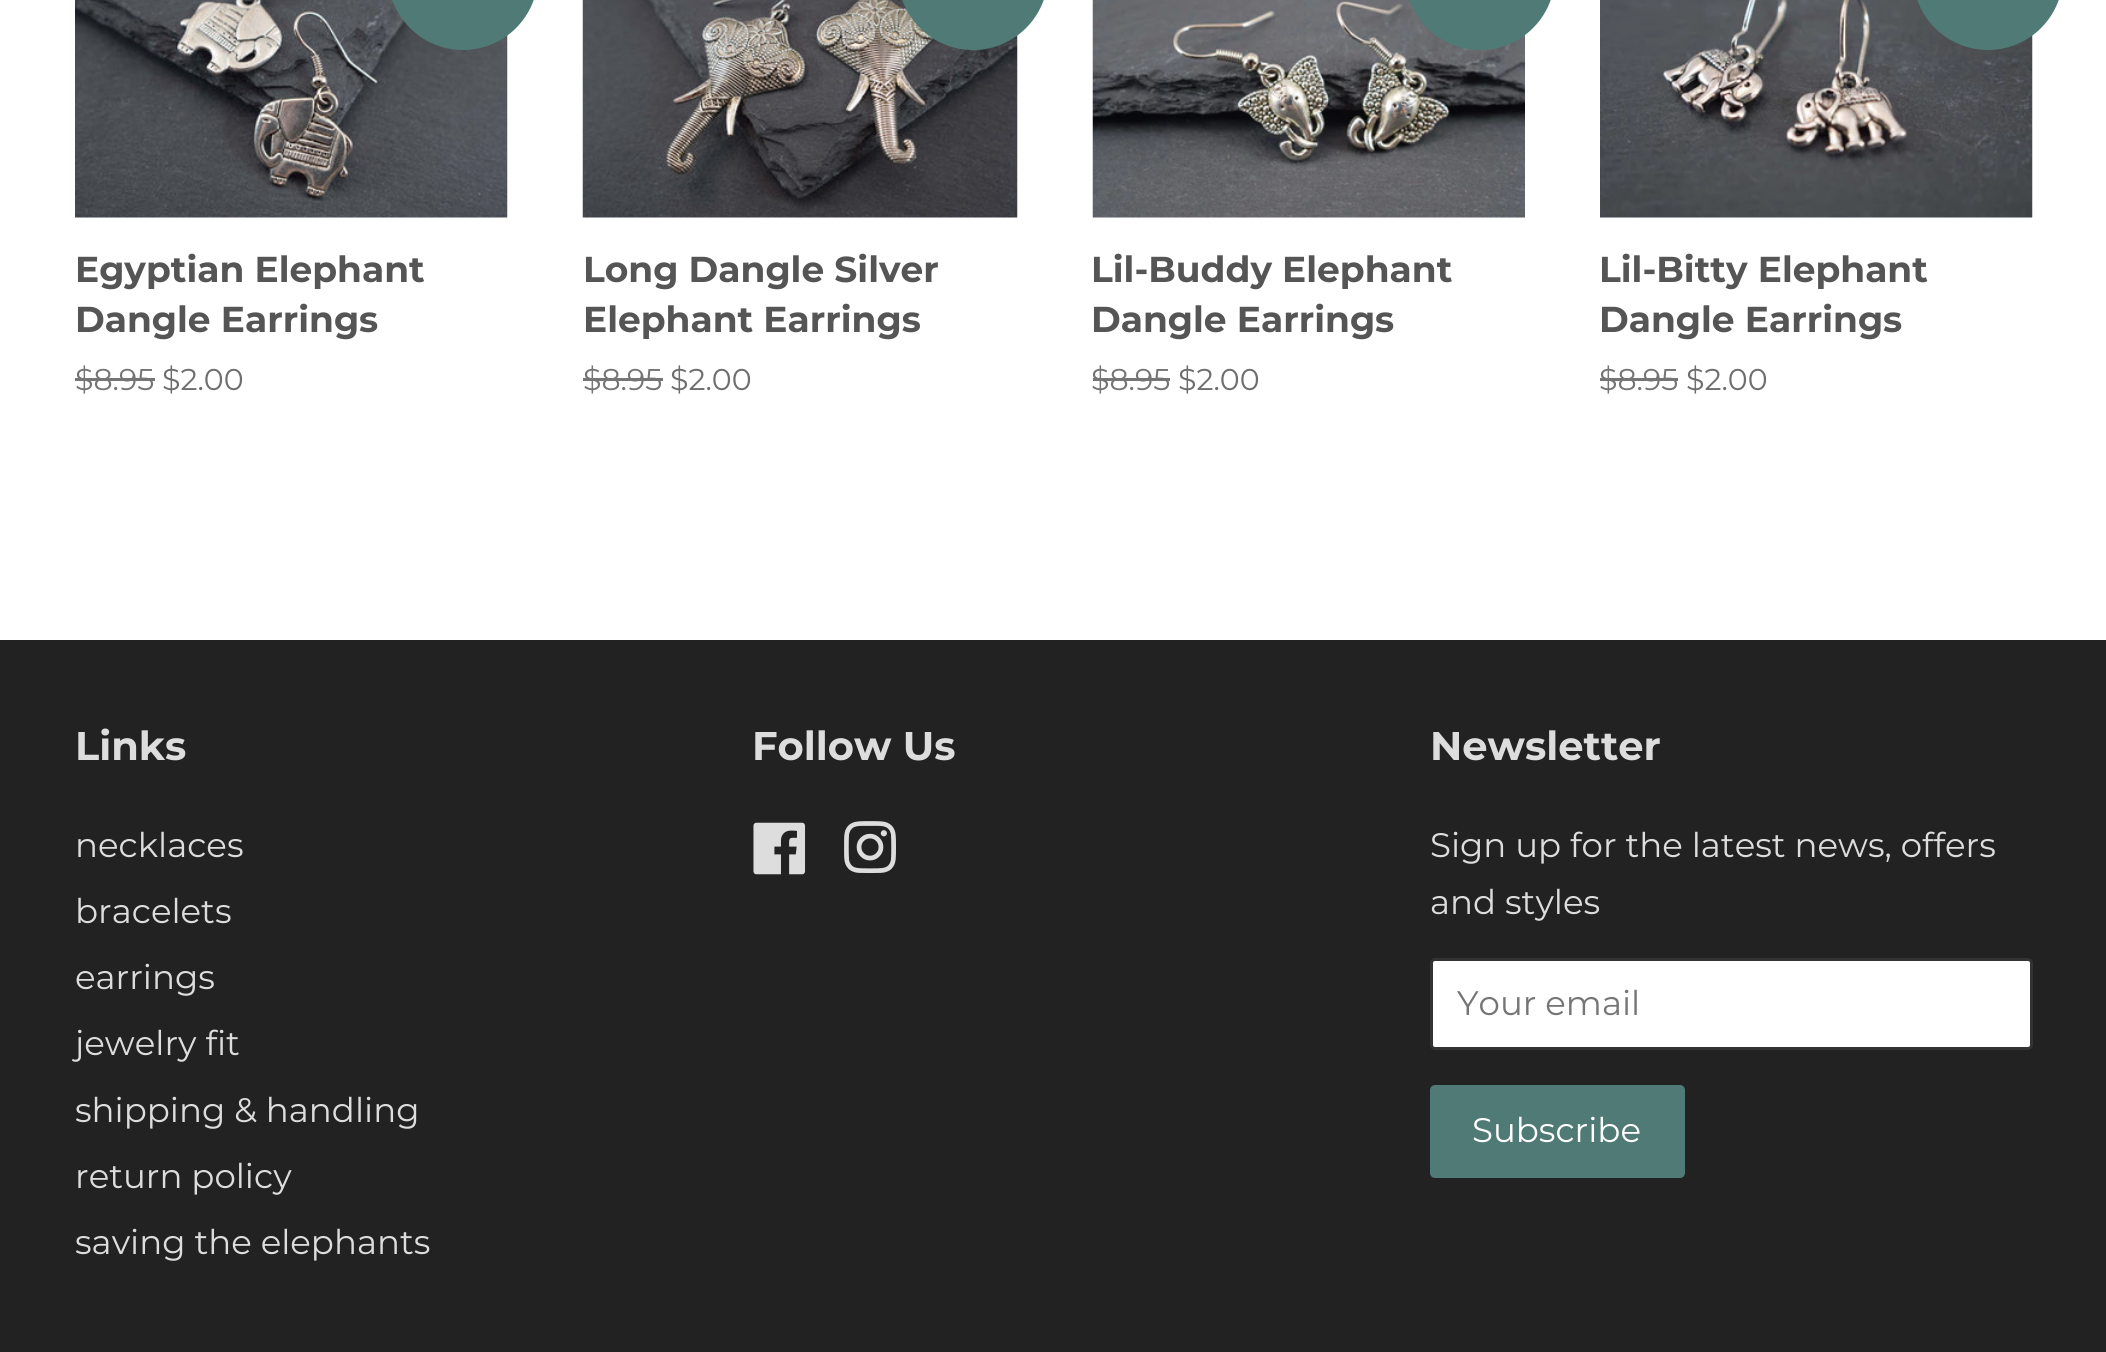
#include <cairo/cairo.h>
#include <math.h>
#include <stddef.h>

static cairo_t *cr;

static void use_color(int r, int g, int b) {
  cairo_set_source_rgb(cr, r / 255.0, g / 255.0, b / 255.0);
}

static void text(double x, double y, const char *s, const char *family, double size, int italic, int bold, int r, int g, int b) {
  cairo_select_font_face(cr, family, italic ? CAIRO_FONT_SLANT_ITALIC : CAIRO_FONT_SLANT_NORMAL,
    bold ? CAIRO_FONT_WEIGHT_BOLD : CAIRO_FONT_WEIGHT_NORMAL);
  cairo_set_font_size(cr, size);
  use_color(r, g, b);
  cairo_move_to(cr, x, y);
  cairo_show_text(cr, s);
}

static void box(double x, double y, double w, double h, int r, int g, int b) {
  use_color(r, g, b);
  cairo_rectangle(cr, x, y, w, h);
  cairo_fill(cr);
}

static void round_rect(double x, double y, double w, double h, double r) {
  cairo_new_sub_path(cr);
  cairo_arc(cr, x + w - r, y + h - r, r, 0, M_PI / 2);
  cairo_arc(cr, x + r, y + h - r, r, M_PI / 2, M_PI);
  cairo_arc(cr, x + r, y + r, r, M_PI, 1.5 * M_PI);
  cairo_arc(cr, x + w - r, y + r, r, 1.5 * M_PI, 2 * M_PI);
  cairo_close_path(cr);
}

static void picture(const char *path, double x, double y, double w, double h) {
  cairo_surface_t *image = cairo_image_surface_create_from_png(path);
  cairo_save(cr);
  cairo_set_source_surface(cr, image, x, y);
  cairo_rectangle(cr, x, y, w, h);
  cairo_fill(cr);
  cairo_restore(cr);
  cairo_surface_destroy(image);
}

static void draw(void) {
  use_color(255, 255, 255);
  cairo_paint(cr);
  picture("img_01.png", 75, 0, 433, 218);
  use_color(79, 122, 118);
  round_rect(388, -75, 150, 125, 75);
  cairo_fill(cr);
  box(75, 378, 80, 3, 117, 117, 117);
  picture("img_02.png", 582, 0, 436, 218);
  use_color(79, 122, 118);
  round_rect(898, -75, 150, 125, 75);
  cairo_fill(cr);
  box(583, 378, 80, 3, 117, 117, 117);
  picture("img_03.png", 1092, 0, 433, 218);
  use_color(79, 122, 118);
  round_rect(1405, -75, 150, 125, 75);
  cairo_fill(cr);
  box(1093, 378, 77, 3, 117, 117, 117);
  picture("img_04.png", 1600, 0, 433, 218);
  use_color(79, 122, 118);
  round_rect(1913, -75, 150, 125, 75);
  cairo_fill(cr);
  box(1600, 378, 78, 3, 117, 117, 117);
  box(0, 640, 2106, 712, 34, 34, 34);
  picture("img_05.png", 753, 822, 53, 53);
  picture("img_06.png", 844, 821, 52, 52);
  use_color(255, 255, 255);
  round_rect(1431.5, 959.5, 600, 89, 3.5);
  cairo_fill_preserve(cr);
  use_color(51, 51, 51);
  cairo_set_line_width(cr, 3);
  cairo_stroke(cr);
  use_color(79, 122, 118);
  round_rect(1430, 1085, 255, 93, 5);
  cairo_fill(cr);
  text(75, 282, "Egyptian Elephant", "Montserrat", 36, 0, 1, 85, 85, 85);
  text(75, 332, "Dangle Earrings", "Montserrat", 36, 0, 1, 85, 85, 85);
  text(75, 390, "$8.95", "Montserrat", 30, 0, 0, 117, 117, 117);
  text(162, 390, "$2.00", "Montserrat", 30, 0, 0, 110, 110, 110);
  text(583, 282, "Long Dangle Silver", "Montserrat", 36, 0, 1, 85, 85, 85);
  text(583, 332, "Elephant Earrings", "Montserrat", 36, 0, 1, 85, 85, 85);
  text(583, 390, "$8.95", "Montserrat", 30, 0, 0, 117, 117, 117);
  text(670, 390, "$2.00", "Montserrat", 30, 0, 0, 110, 110, 110);
  text(1091, 282, "Lil-Buddy Elephant", "Montserrat", 36, 0, 1, 85, 85, 85);
  text(1091, 332, "Dangle Earrings", "Montserrat", 36, 0, 1, 85, 85, 85);
  text(1091, 390, "$8.95", "Montserrat", 30, 0, 0, 117, 117, 117);
  text(1178, 390, "$2.00", "Montserrat", 30, 0, 0, 110, 110, 110);
  text(1599, 282, "Lil-Bitty Elephant", "Montserrat", 36, 0, 1, 85, 85, 85);
  text(1599, 332, "Dangle Earrings", "Montserrat", 36, 0, 1, 85, 85, 85);
  text(1599, 390, "$8.95", "Montserrat", 30, 0, 0, 117, 117, 117);
  text(1686, 390, "$2.00", "Montserrat", 30, 0, 0, 110, 110, 110);
  text(75, 760, "Links", "Montserrat", 40, 0, 1, 221, 221, 221);
  text(75, 857, "necklaces", "Montserrat", 34, 0, 0, 221, 221, 221);
  text(75, 923, "bracelets", "Montserrat", 34, 0, 0, 221, 221, 221);
  text(75, 989, "earrings", "Montserrat", 34, 0, 0, 221, 221, 221);
  text(75, 1055, "jewelry fit", "Montserrat", 34, 0, 0, 221, 221, 221);
  text(75, 1122, "shipping & handling", "Montserrat", 34, 0, 0, 221, 221, 221);
  text(75, 1188, "return policy", "Montserrat", 34, 0, 0, 221, 221, 221);
  text(75, 1254, "saving the elephants", "Montserrat", 34, 0, 0, 221, 221, 221);
  text(752, 760, "Follow Us", "Montserrat", 40, 0, 1, 221, 221, 221);
  text(1430, 760, "Newsletter", "Montserrat", 40, 0, 1, 221, 221, 221);
  text(1430, 857, "Sign up for the latest news, offers", "Montserrat", 34, 0, 0, 221, 221, 221);
  text(1430, 914, "and styles", "Montserrat", 34, 0, 0, 221, 221, 221);
  text(1457, 1015, "Your email", "Montserrat", 34, 0, 0, 117, 117, 117);
  text(1472, 1142, "Subscribe", "Montserrat", 34, 0, 0, 255, 255, 255);
}

int main(void) {
  cairo_surface_t *surface = cairo_image_surface_create(CAIRO_FORMAT_RGB24, 2106, 1352);
  cr = cairo_create(surface);
  cairo_font_options_t *options = cairo_font_options_create();
  cairo_font_options_set_hint_metrics(options, CAIRO_HINT_METRICS_OFF);
  cairo_font_options_set_hint_style(options, CAIRO_HINT_STYLE_NONE);
  cairo_set_font_options(cr, options);
  cairo_set_miter_limit(cr, 4);
  draw();
  cairo_surface_write_to_png(surface, "out.png");
  cairo_font_options_destroy(options);
  cairo_destroy(cr);
  cairo_surface_destroy(surface);
  return 0;
}
